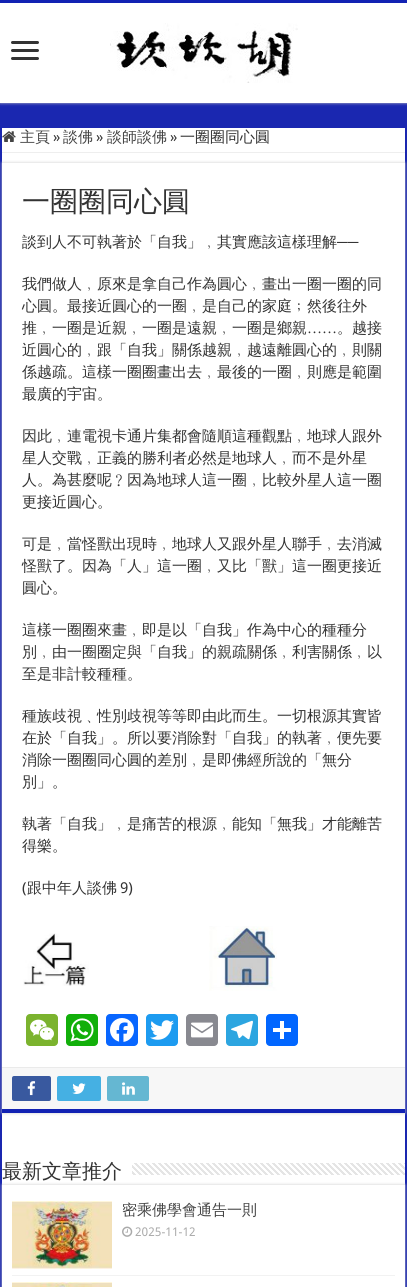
#include <cairo/cairo.h>
#include <math.h>
#include <stddef.h>

static cairo_t *cr;

static void use_color(int r, int g, int b) {
  cairo_set_source_rgb(cr, r / 255.0, g / 255.0, b / 255.0);
}

static void text(double x, double y, const char *s, const char *family, double size, int italic, int bold, int r, int g, int b) {
  cairo_select_font_face(cr, family, italic ? CAIRO_FONT_SLANT_ITALIC : CAIRO_FONT_SLANT_NORMAL,
    bold ? CAIRO_FONT_WEIGHT_BOLD : CAIRO_FONT_WEIGHT_NORMAL);
  cairo_set_font_size(cr, size);
  use_color(r, g, b);
  cairo_move_to(cr, x, y);
  cairo_show_text(cr, s);
}

static void box(double x, double y, double w, double h, int r, int g, int b) {
  use_color(r, g, b);
  cairo_rectangle(cr, x, y, w, h);
  cairo_fill(cr);
}

static void round_rect(double x, double y, double w, double h, double r) {
  cairo_new_sub_path(cr);
  cairo_arc(cr, x + w - r, y + h - r, r, 0, M_PI / 2);
  cairo_arc(cr, x + r, y + h - r, r, M_PI / 2, M_PI);
  cairo_arc(cr, x + r, y + r, r, M_PI, 1.5 * M_PI);
  cairo_arc(cr, x + w - r, y + r, r, 1.5 * M_PI, 2 * M_PI);
  cairo_close_path(cr);
}

static void shadow(double x, double y, double w, double h, double r, double blur, double alpha) {
  cairo_push_group_with_content(cr, CAIRO_CONTENT_ALPHA);
  cairo_set_operator(cr, CAIRO_OPERATOR_SOURCE);
  for (int i = 15; i >= -15 && fmin(w, h) + blur * i / 3 > 0; i -= 2) {
    double e = blur * i / 6;
    cairo_set_source_rgba(cr, 0, 0, 0, alpha * erfc((i - 1) / 8.5) / 2);
    round_rect(x - e, y - e, w + 2 * e, h + 2 * e, fmax(0, fmin(r + e + blur * .6, fmin(w, h) / 2 + e)));
    cairo_fill(cr);
  }
  cairo_pattern_t *soft = cairo_pop_group(cr);
  cairo_mask(cr, soft);
  cairo_pattern_destroy(soft);
}

static void picture(const char *path, double x, double y, double w, double h) {
  cairo_surface_t *image = cairo_image_surface_create_from_png(path);
  cairo_save(cr);
  cairo_set_source_surface(cr, image, x, y);
  cairo_rectangle(cr, x, y, w, h);
  cairo_fill(cr);
  cairo_restore(cr);
  cairo_surface_destroy(image);
}

static void draw(void) {
  use_color(26, 39, 176);
  cairo_paint(cr);
  use_color(202, 202, 202);
  shadow(0, 0, 407, 103, 0, 1.5, 1);
  box(0, 3, 407, 100, 255, 255, 255);
  box(0, 0, 407, 3, 18, 34, 179);
  use_color(51, 51, 51);
  round_rect(11, 41, 28, 3, 1.5);
  cairo_fill(cr);
  round_rect(11, 49, 28, 3, 1.5);
  cairo_fill(cr);
  round_rect(11, 57, 28, 3, 1.5);
  cairo_fill(cr);
  picture("img_01.png", 110, 23, 188, 60);
  box(2, 128, 403, 1159, 255, 255, 255);
  box(2, 152, 403, 1, 238, 238, 238);
  picture("img_02.png", 2, 131, 14, 11);
  cairo_save(cr);
  cairo_set_fill_rule(cr, CAIRO_FILL_RULE_EVEN_ODD);
  cairo_new_path(cr);
  cairo_move_to(cr, 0, 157);
  cairo_line_to(cr, 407, 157);
  cairo_line_to(cr, 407, 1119);
  cairo_line_to(cr, 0, 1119);
  cairo_close_path(cr);
  cairo_move_to(cr, 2, 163);
  cairo_line_to(cr, 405, 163);
  cairo_line_to(cr, 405, 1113);
  cairo_line_to(cr, 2, 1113);
  cairo_close_path(cr);
  cairo_clip(cr);
  use_color(202, 202, 202);
  shadow(2, 163, 403, 950, 0, 1.5, 1);
  cairo_restore(cr);
  box(2, 1109, 403, 4, 18, 34, 179);
  picture("img_03.png", 23, 933, 66, 53);
  picture("img_04.png", 209, 926, 68, 65);
  use_color(123, 179, 46);
  round_rect(26, 1014, 32, 32, 4);
  cairo_fill(cr);
  picture("img_05.png", 30, 1019, 24, 22);
  use_color(18, 175, 10);
  round_rect(66, 1014, 32, 32, 4);
  cairo_fill(cr);
  picture("img_06.png", 70, 1018, 24, 24);
  use_color(8, 102, 255);
  round_rect(106, 1014, 32, 32, 4);
  cairo_fill(cr);
  picture("img_07.png", 110, 1018, 24, 24);
  use_color(29, 155, 240);
  round_rect(146, 1014, 32, 32, 4);
  cairo_fill(cr);
  picture("img_08.png", 150, 1020, 24, 20);
  use_color(136, 137, 144);
  round_rect(186, 1014, 32, 32, 4);
  cairo_fill(cr);
  picture("img_09.png", 191, 1022, 22, 16);
  use_color(44, 165, 224);
  round_rect(226, 1014, 32, 32, 4);
  cairo_fill(cr);
  picture("img_10.png", 231, 1020, 22, 20);
  use_color(1, 102, 255);
  round_rect(266, 1014, 32, 32, 4);
  cairo_fill(cr);
  box(280, 1021, 4, 18, 255, 255, 255);
  box(273, 1028, 18, 4, 255, 255, 255);
  box(2, 1068, 403, 41, 247, 247, 247);
  box(2, 1067, 403, 1, 234, 234, 234);
  use_color(57, 89, 159);
  round_rect(12, 1076, 39, 25, 2);
  cairo_fill(cr);
  picture("img_11.png", 27, 1081, 9, 15);
  use_color(69, 176, 227);
  round_rect(57, 1076, 44, 25, 2);
  cairo_fill(cr);
  picture("img_12.png", 72, 1083, 14, 11);
  use_color(101, 183, 210);
  round_rect(107, 1076, 42, 25, 2);
  cairo_fill(cr);
  picture("img_13.png", 122, 1082, 13, 13);
  picture("img_14.png", 132, 1163, 273, 12);
  cairo_save(cr);
  cairo_set_fill_rule(cr, CAIRO_FILL_RULE_EVEN_ODD);
  cairo_new_path(cr);
  cairo_move_to(cr, 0, 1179);
  cairo_line_to(cr, 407, 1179);
  cairo_line_to(cr, 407, 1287);
  cairo_line_to(cr, 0, 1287);
  cairo_close_path(cr);
  cairo_move_to(cr, 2, 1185);
  cairo_line_to(cr, 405, 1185);
  cairo_line_to(cr, 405, 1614);
  cairo_line_to(cr, 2, 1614);
  cairo_close_path(cr);
  cairo_clip(cr);
  use_color(202, 202, 202);
  shadow(2, 1185, 403, 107, 0, 1.5, 1);
  cairo_restore(cr);
  box(12, 1275, 383, 1, 242, 242, 242);
  picture("img_15.png", 12, 1201, 100, 68);
  picture("img_16.png", 122, 1226, 11, 11);
  picture("img_17.png", 12, 1282, 100, 5);
  text(20, 142, "主頁", "WenQuanYi Zen Hei Medium", 15, 0, 0, 68, 68, 68);
  text(53, 142, "»", "Droid Sans", 15, 0, 0, 51, 51, 51);
  text(63, 142, "談佛", "WenQuanYi Zen Hei Medium", 15, 0, 0, 68, 68, 68);
  text(96, 142, "»", "Droid Sans", 15, 0, 0, 51, 51, 51);
  text(107, 142, "談師談佛", "WenQuanYi Zen Hei Medium", 15, 0, 0, 68, 68, 68);
  text(170, 142, "»", "Droid Sans", 15, 0, 0, 51, 51, 51);
  text(180, 142, "一圈圈同心圓", "WenQuanYi Zen Hei Medium", 15, 0, 0, 51, 51, 51);
  text(22, 211, "一圈圈同心圓", "WenQuanYi Zen Hei Medium", 28, 0, 0, 51, 51, 51);
  text(22, 247, "談到人不可執著於「自我」﹐其實應該這樣理解", "WenQuanYi Zen Hei Medium", 15, 0, 0, 51, 51, 51);
  text(337, 247, "──", "Liberation Serif", 15, 0, 0, 51, 51, 51);
  text(22, 289, "我們做人﹐原來是拿自己作為圓心﹐畫出一圈一圈的同", "WenQuanYi Zen Hei Medium", 15, 0, 0, 51, 51, 51);
  text(22, 311, "心圓。最接近圓心的一圈﹐是自己的家庭﹔然後往外", "WenQuanYi Zen Hei Medium", 15, 0, 0, 51, 51, 51);
  text(22, 333, "推﹐一圈是近親﹐一圈是遠親﹐一圈是鄉親", "WenQuanYi Zen Hei Medium", 15, 0, 0, 51, 51, 51);
  text(307, 333, "……", "Liberation Serif", 15, 0, 0, 51, 51, 51);
  text(337, 333, "。越接", "WenQuanYi Zen Hei Medium", 15, 0, 0, 51, 51, 51);
  text(22, 355, "近圓心的﹐跟「自我」關係越親﹐越遠離圓心的﹐則關", "WenQuanYi Zen Hei Medium", 15, 0, 0, 51, 51, 51);
  text(22, 377, "係越疏。這樣一圈圈畫出去﹐最後的一圈﹐則應是範圍", "WenQuanYi Zen Hei Medium", 15, 0, 0, 51, 51, 51);
  text(22, 399, "最廣的宇宙。", "WenQuanYi Zen Hei Medium", 15, 0, 0, 51, 51, 51);
  text(22, 441, "因此﹐連電視卡通片集都會隨順這種觀點﹐地球人跟外", "WenQuanYi Zen Hei Medium", 15, 0, 0, 51, 51, 51);
  text(22, 463, "星人交戰﹐正義的勝利者必然是地球人﹐而不是外星", "WenQuanYi Zen Hei Medium", 15, 0, 0, 51, 51, 51);
  text(22, 485, "人。為甚麼呢﹖因為地球人這一圈﹐比較外星人這一圈", "WenQuanYi Zen Hei Medium", 15, 0, 0, 51, 51, 51);
  text(22, 507, "更接近圓心。", "WenQuanYi Zen Hei Medium", 15, 0, 0, 51, 51, 51);
  text(22, 549, "可是﹐當怪獸出現時﹐地球人又跟外星人聯手﹐去消滅", "WenQuanYi Zen Hei Medium", 15, 0, 0, 51, 51, 51);
  text(22, 571, "怪獸了。因為「人」這一圈﹐又比「獸」這一圈更接近", "WenQuanYi Zen Hei Medium", 15, 0, 0, 51, 51, 51);
  text(22, 593, "圓心。", "WenQuanYi Zen Hei Medium", 15, 0, 0, 51, 51, 51);
  text(22, 635, "這樣一圈圈來畫﹐即是以「自我」作為中心的種種分", "WenQuanYi Zen Hei Medium", 15, 0, 0, 51, 51, 51);
  text(22, 657, "別﹐由一圈圈定與「自我」的親疏關係﹐利害關係﹐以", "WenQuanYi Zen Hei Medium", 15, 0, 0, 51, 51, 51);
  text(22, 679, "至是非計較種種。", "WenQuanYi Zen Hei Medium", 15, 0, 0, 51, 51, 51);
  text(22, 721, "種族歧視﹑性別歧視等等即由此而生。一切根源其實皆", "WenQuanYi Zen Hei Medium", 15, 0, 0, 51, 51, 51);
  text(22, 743, "在於「自我」。所以要消除對「自我」的執著﹐便先要", "WenQuanYi Zen Hei Medium", 15, 0, 0, 51, 51, 51);
  text(22, 765, "消除一圈圈同心圓的差別﹐是即佛經所說的「無分", "WenQuanYi Zen Hei Medium", 15, 0, 0, 51, 51, 51);
  text(22, 787, "別」。", "WenQuanYi Zen Hei Medium", 15, 0, 0, 51, 51, 51);
  text(22, 829, "執著「自我」﹐是痛苦的根源﹐能知「無我」才能離苦", "WenQuanYi Zen Hei Medium", 15, 0, 0, 51, 51, 51);
  text(22, 851, "得樂。", "WenQuanYi Zen Hei Medium", 15, 0, 0, 51, 51, 51);
  text(22, 893, "(", "Droid Sans", 15, 0, 0, 51, 51, 51);
  text(27, 893, "跟中年人談佛", "WenQuanYi Zen Hei Medium", 15, 0, 0, 51, 51, 51);
  text(120, 893, "9)", "Droid Sans", 15, 0, 0, 51, 51, 51);
  text(2, 1178, "最新文章推介", "WenQuanYi Zen Hei Medium", 20, 0, 0, 51, 51, 51);
  text(122, 1215, "密乘佛學會通告一則", "WenQuanYi Zen Hei Medium", 15, 0, 0, 68, 68, 68);
  text(135, 1236, "2025-11-12", "Droid Sans", 12, 0, 0, 170, 170, 170);
}

int main(void) {
  cairo_surface_t *surface = cairo_image_surface_create(CAIRO_FORMAT_RGB24, 407, 1287);
  cr = cairo_create(surface);
  cairo_font_options_t *options = cairo_font_options_create();
  cairo_font_options_set_hint_metrics(options, CAIRO_HINT_METRICS_OFF);
  cairo_font_options_set_hint_style(options, CAIRO_HINT_STYLE_NONE);
  cairo_set_font_options(cr, options);
  cairo_set_miter_limit(cr, 4);
  draw();
  cairo_surface_write_to_png(surface, "out.png");
  cairo_font_options_destroy(options);
  cairo_destroy(cr);
  cairo_surface_destroy(surface);
  return 0;
}
